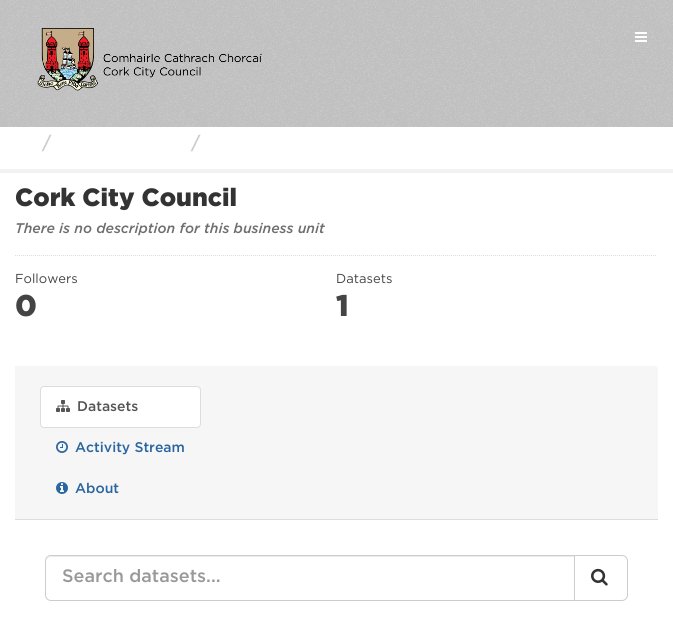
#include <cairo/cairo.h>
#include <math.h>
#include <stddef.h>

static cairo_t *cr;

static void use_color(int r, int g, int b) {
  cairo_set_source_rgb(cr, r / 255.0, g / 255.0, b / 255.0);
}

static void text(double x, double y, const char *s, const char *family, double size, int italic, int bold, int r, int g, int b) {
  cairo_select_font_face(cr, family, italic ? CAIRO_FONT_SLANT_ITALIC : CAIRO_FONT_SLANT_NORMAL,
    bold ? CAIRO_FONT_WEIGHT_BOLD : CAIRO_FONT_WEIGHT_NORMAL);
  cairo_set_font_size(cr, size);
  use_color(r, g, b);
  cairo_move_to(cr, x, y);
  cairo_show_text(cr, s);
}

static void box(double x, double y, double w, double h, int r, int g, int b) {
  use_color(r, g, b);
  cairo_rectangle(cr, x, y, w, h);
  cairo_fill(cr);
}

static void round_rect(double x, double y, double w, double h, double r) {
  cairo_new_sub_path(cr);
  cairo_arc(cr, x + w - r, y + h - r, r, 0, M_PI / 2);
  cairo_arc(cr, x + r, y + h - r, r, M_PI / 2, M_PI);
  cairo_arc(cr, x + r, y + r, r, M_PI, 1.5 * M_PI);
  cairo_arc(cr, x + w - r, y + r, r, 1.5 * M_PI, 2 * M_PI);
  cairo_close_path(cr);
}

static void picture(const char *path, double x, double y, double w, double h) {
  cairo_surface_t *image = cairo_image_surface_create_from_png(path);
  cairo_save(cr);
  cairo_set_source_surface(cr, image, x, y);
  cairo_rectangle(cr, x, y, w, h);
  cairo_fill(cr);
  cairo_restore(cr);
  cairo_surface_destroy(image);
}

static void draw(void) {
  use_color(255, 255, 255);
  cairo_paint(cr);
  box(0, 0, 673, 127, 198, 198, 198);
  picture("img_01.png", 0, 0, 673, 127);
  picture("img_02.png", 37, 28, 225, 63);
  picture("img_03.png", 635, 32, 12, 10);
  cairo_rectangle(cr, -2, 171, 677, 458);
  use_color(242, 242, 242);
  cairo_set_line_width(cr, 4);
  cairo_stroke(cr);
  cairo_new_path(cr);
  cairo_move_to(cr, 15, 255.5);
  cairo_line_to(cr, 657, 255.5);
  use_color(221, 221, 221);
  cairo_set_line_width(cr, 1);
  cairo_set_dash(cr, (double[]){1, 1}, 2, 0);
  cairo_stroke(cr);
  use_color(246, 246, 246);
  cairo_new_path(cr);
  cairo_move_to(cr, 15, 366);
  cairo_line_to(cr, 655, 366);
  cairo_curve_to(cr, 656.5, 366, 658, 367.5, 658, 369);
  cairo_line_to(cr, 658, 520);
  cairo_line_to(cr, 15, 520);
  cairo_close_path(cr);
  cairo_fill(cr);
  box(15, 519, 643, 1, 221, 221, 221);
  use_color(255, 255, 255);
  round_rect(40.5, 386.5, 160, 41, 3.5);
  cairo_fill_preserve(cr);
  use_color(221, 221, 221);
  cairo_set_dash(cr, NULL, 0, 0);
  cairo_stroke(cr);
  picture("img_04.png", 56, 400, 14, 12);
  picture("img_05.png", 56, 441, 12, 12);
  picture("img_06.png", 56, 482, 12, 12);
  use_color(236, 236, 236);
  cairo_new_path(cr);
  cairo_move_to(cr, 51, 557);
  cairo_line_to(cr, 574, 557);
  cairo_line_to(cr, 574, 556);
  cairo_line_to(cr, 51, 556);
  cairo_curve_to(cr, 48, 556, 46, 559, 46, 562);
  cairo_curve_to(cr, 46, 559, 48, 557, 51, 557);
  cairo_close_path(cr);
  cairo_fill(cr);
  cairo_new_path(cr);
  cairo_move_to(cr, 51, 555.5);
  cairo_line_to(cr, 574.5, 555.5);
  cairo_line_to(cr, 574.5, 600.5);
  cairo_line_to(cr, 51, 600.5);
  cairo_curve_to(cr, 48, 600.5, 45.5, 598, 45.5, 595);
  cairo_line_to(cr, 45.5, 561);
  cairo_curve_to(cr, 45.5, 558, 48, 555.5, 51, 555.5);
  cairo_close_path(cr);
  use_color(204, 204, 204);
  cairo_stroke(cr);
  use_color(255, 255, 255);
  cairo_new_path(cr);
  cairo_move_to(cr, 574.5, 555.5);
  cairo_line_to(cr, 622, 555.5);
  cairo_curve_to(cr, 625, 555.5, 627.5, 558, 627.5, 561);
  cairo_line_to(cr, 627.5, 595);
  cairo_curve_to(cr, 627.5, 598, 625, 600.5, 622, 600.5);
  cairo_line_to(cr, 574.5, 600.5);
  cairo_close_path(cr);
  cairo_fill_preserve(cr);
  use_color(204, 204, 204);
  cairo_stroke(cr);
  picture("img_07.png", 591, 568, 17, 18);
  text(42, 149, "/", "Gotham Medium", 18, 0, 0, 204, 204, 204);
  text(191, 149, "/", "Gotham Medium", 18, 0, 0, 204, 204, 204);
  text(15, 206, "Cork City Council", "Gotham Black", 25, 0, 0, 51, 51, 51);
  text(15, 233, "There is no description for this business unit", "Gotham Medium", 14, 1, 0, 110, 110, 110);
  text(15, 283, "Followers", "Gotham", 13, 0, 0, 68, 68, 68);
  text(15, 316, "0", "Gotham Black", 30, 0, 0, 68, 68, 68);
  text(336, 283, "Datasets", "Gotham", 13, 0, 0, 68, 68, 68);
  text(336, 316, "1", "Gotham Black", 30, 0, 0, 68, 68, 68);
  text(77, 411, "Datasets", "Gotham Medium", 14, 0, 0, 85, 85, 85);
  text(75, 452, "Activity Stream", "Gotham Medium", 14, 0, 0, 43, 102, 161);
  text(75, 493, "About", "Gotham Medium", 14, 0, 0, 43, 102, 161);
  cairo_save(cr);
  cairo_rectangle(cr, 62, 569, 496, 17);
  cairo_clip(cr);
  text(62, 582, "Search datasets...", "Gotham Medium", 18, 0, 0, 153, 153, 153);
  cairo_restore(cr);
}

int main(void) {
  cairo_surface_t *surface = cairo_image_surface_create(CAIRO_FORMAT_RGB24, 673, 627);
  cr = cairo_create(surface);
  cairo_font_options_t *options = cairo_font_options_create();
  cairo_font_options_set_hint_metrics(options, CAIRO_HINT_METRICS_OFF);
  cairo_font_options_set_hint_style(options, CAIRO_HINT_STYLE_NONE);
  cairo_set_font_options(cr, options);
  cairo_set_miter_limit(cr, 4);
  draw();
  cairo_surface_write_to_png(surface, "out.png");
  cairo_font_options_destroy(options);
  cairo_destroy(cr);
  cairo_surface_destroy(surface);
  return 0;
}
